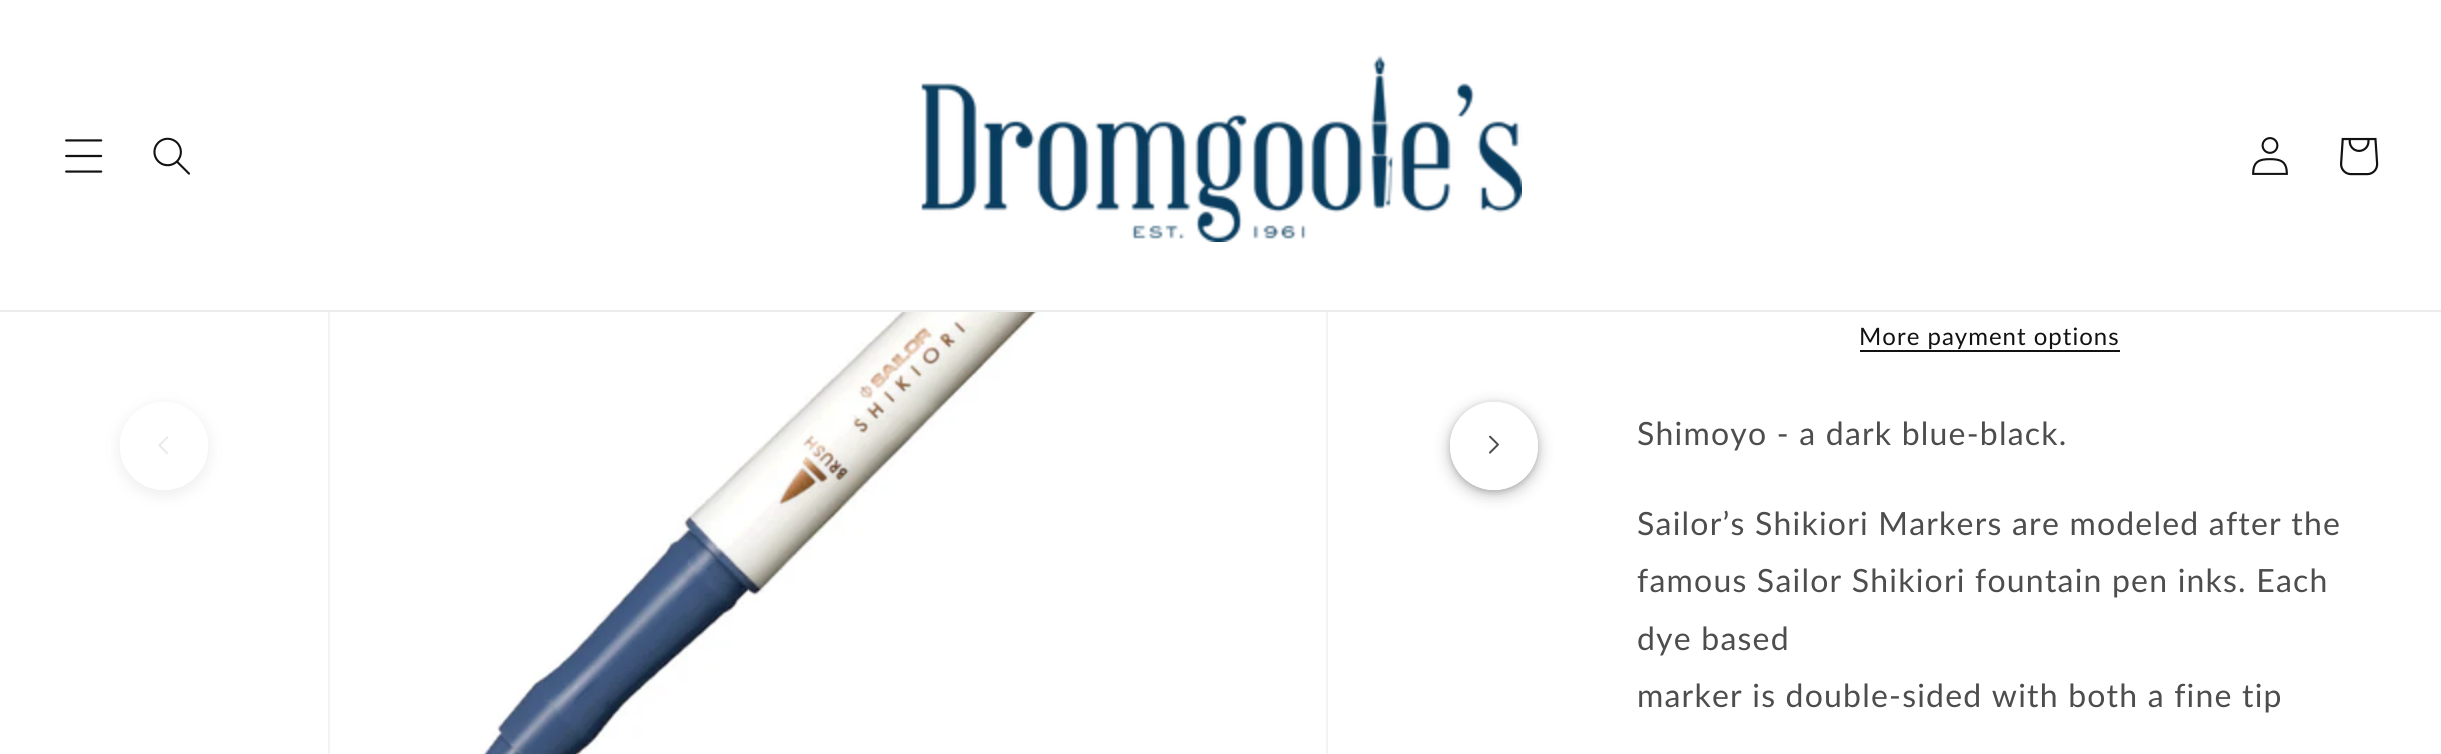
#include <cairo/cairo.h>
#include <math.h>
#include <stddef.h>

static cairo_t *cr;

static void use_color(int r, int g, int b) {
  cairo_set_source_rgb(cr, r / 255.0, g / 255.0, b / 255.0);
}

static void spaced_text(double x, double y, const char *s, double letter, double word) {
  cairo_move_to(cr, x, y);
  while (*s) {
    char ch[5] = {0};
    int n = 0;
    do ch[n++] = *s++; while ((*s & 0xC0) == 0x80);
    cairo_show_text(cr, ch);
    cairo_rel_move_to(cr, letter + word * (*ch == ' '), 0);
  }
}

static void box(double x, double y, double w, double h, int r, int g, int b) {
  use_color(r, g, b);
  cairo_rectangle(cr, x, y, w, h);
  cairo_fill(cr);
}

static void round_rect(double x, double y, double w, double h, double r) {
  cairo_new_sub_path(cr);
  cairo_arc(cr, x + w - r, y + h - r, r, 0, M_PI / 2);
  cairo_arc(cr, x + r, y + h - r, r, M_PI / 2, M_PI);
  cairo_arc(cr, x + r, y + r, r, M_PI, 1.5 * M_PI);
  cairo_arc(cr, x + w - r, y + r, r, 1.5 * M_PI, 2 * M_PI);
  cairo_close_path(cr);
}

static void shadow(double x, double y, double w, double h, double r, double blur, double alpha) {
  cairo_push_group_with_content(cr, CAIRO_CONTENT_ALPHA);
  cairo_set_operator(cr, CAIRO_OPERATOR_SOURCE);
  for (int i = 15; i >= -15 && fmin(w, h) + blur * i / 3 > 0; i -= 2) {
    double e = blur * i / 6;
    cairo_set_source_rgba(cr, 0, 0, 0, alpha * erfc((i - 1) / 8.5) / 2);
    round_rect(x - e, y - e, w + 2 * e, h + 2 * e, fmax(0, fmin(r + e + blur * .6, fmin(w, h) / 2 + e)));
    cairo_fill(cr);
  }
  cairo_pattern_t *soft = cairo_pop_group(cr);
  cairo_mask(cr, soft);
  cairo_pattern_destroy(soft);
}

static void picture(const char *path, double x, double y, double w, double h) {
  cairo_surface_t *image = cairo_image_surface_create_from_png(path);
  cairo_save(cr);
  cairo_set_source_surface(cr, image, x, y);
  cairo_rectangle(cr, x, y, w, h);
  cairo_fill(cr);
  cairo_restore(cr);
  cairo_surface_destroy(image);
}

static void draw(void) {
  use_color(255, 255, 255);
  cairo_paint(cr);
  cairo_rectangle(cr, 329, -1, 998, 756);
  use_color(243, 243, 243);
  cairo_stroke(cr);
  box(328, 0, 1000, 310, 255, 255, 255);
  box(0, 310, 2441, 2, 236, 236, 236);
  picture("img_01.png", 65, 139, 38, 34);
  picture("img_02.png", 153, 137, 37, 38);
  picture("img_03.png", 921, 55, 601, 187);
  picture("img_04.png", 2252, 137, 36, 38);
  picture("img_05.png", 2340, 137, 39, 39);
  picture("img_06.png", 480, 312, 767, 442);
  cairo_save(cr);
  cairo_set_fill_rule(cr, CAIRO_FILL_RULE_EVEN_ODD);
  cairo_new_path(cr);
  cairo_move_to(cr, 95, 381);
  cairo_line_to(cr, 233, 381);
  cairo_line_to(cr, 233, 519);
  cairo_line_to(cr, 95, 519);
  cairo_close_path(cr);
  cairo_move_to(cr, 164, 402);
  cairo_curve_to(cr, 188.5, 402, 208, 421.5, 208, 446);
  cairo_curve_to(cr, 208, 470.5, 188.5, 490, 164, 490);
  cairo_curve_to(cr, 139.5, 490, 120, 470.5, 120, 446);
  cairo_curve_to(cr, 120, 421.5, 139.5, 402, 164, 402);
  cairo_close_path(cr);
  cairo_clip(cr);
  use_color(179, 179, 179);
  shadow(120, 406, 88, 88, 44, 8, 0.25);
  cairo_restore(cr);
  cairo_set_source_rgba(cr, 1, 1, 1, 0.9);
  cairo_arc(cr, 164, 446, 44, 0, 2 * M_PI);
  cairo_fill(cr);
  picture("img_07.png", 158, 436, 10, 18);
  cairo_save(cr);
  cairo_set_fill_rule(cr, CAIRO_FILL_RULE_EVEN_ODD);
  cairo_new_path(cr);
  cairo_move_to(cr, 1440, 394);
  cairo_line_to(cr, 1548, 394);
  cairo_line_to(cr, 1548, 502);
  cairo_line_to(cr, 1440, 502);
  cairo_close_path(cr);
  cairo_move_to(cr, 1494, 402);
  cairo_curve_to(cr, 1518.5, 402, 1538, 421.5, 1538, 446);
  cairo_curve_to(cr, 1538, 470.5, 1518.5, 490, 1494, 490);
  cairo_curve_to(cr, 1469.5, 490, 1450, 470.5, 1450, 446);
  cairo_curve_to(cr, 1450, 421.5, 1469.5, 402, 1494, 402);
  cairo_close_path(cr);
  cairo_clip(cr);
  use_color(0, 0, 0);
  shadow(1450, 404, 88, 88, 44, 3, 0.15);
  cairo_restore(cr);
  cairo_save(cr);
  cairo_set_fill_rule(cr, CAIRO_FILL_RULE_EVEN_ODD);
  cairo_new_path(cr);
  cairo_move_to(cr, 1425, 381);
  cairo_line_to(cr, 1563, 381);
  cairo_line_to(cr, 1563, 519);
  cairo_line_to(cr, 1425, 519);
  cairo_close_path(cr);
  cairo_move_to(cr, 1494, 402);
  cairo_curve_to(cr, 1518.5, 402, 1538, 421.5, 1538, 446);
  cairo_curve_to(cr, 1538, 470.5, 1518.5, 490, 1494, 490);
  cairo_curve_to(cr, 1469.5, 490, 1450, 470.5, 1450, 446);
  cairo_curve_to(cr, 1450, 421.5, 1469.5, 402, 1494, 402);
  cairo_close_path(cr);
  cairo_clip(cr);
  use_color(0, 0, 0);
  shadow(1450, 406, 88, 88, 44, 8, 0.25);
  cairo_restore(cr);
  cairo_arc(cr, 1494, 446, 44, 0, 2 * M_PI);
  cairo_fill(cr);
  picture("img_08.png", 1489, 435, 10, 19);
  box(1860, 350, 260, 2, 18, 18, 18);
  cairo_select_font_face(cr, "Lato", CAIRO_FONT_SLANT_NORMAL, CAIRO_FONT_WEIGHT_NORMAL);
  cairo_set_font_size(cr, 24);
  spaced_text(1859, 345, "More payment options", 1, 0);
  cairo_set_font_size(cr, 32);
  use_color(77, 77, 77);
  spaced_text(1637, 445, "Shimoyo - a dark blue-black.", 1.2, 0);
  spaced_text(1637, 535, "Sailor’s Shikiori Markers are modeled after the", 1.2, 0);
  spaced_text(1637, 592, "famous Sailor Shikiori fountain pen inks. Each", 1.2, 0);
  spaced_text(1637, 650, "dye based", 1.2, 0);
  spaced_text(1637, 707, "marker is double-sided with both a fine tip", 1.2, 0);
}

int main(void) {
  cairo_surface_t *surface = cairo_image_surface_create(CAIRO_FORMAT_RGB24, 2441, 754);
  cr = cairo_create(surface);
  cairo_font_options_t *options = cairo_font_options_create();
  cairo_font_options_set_hint_metrics(options, CAIRO_HINT_METRICS_OFF);
  cairo_font_options_set_hint_style(options, CAIRO_HINT_STYLE_NONE);
  cairo_set_font_options(cr, options);
  cairo_set_miter_limit(cr, 4);
  draw();
  cairo_surface_write_to_png(surface, "out.png");
  cairo_font_options_destroy(options);
  cairo_destroy(cr);
  cairo_surface_destroy(surface);
  return 0;
}
